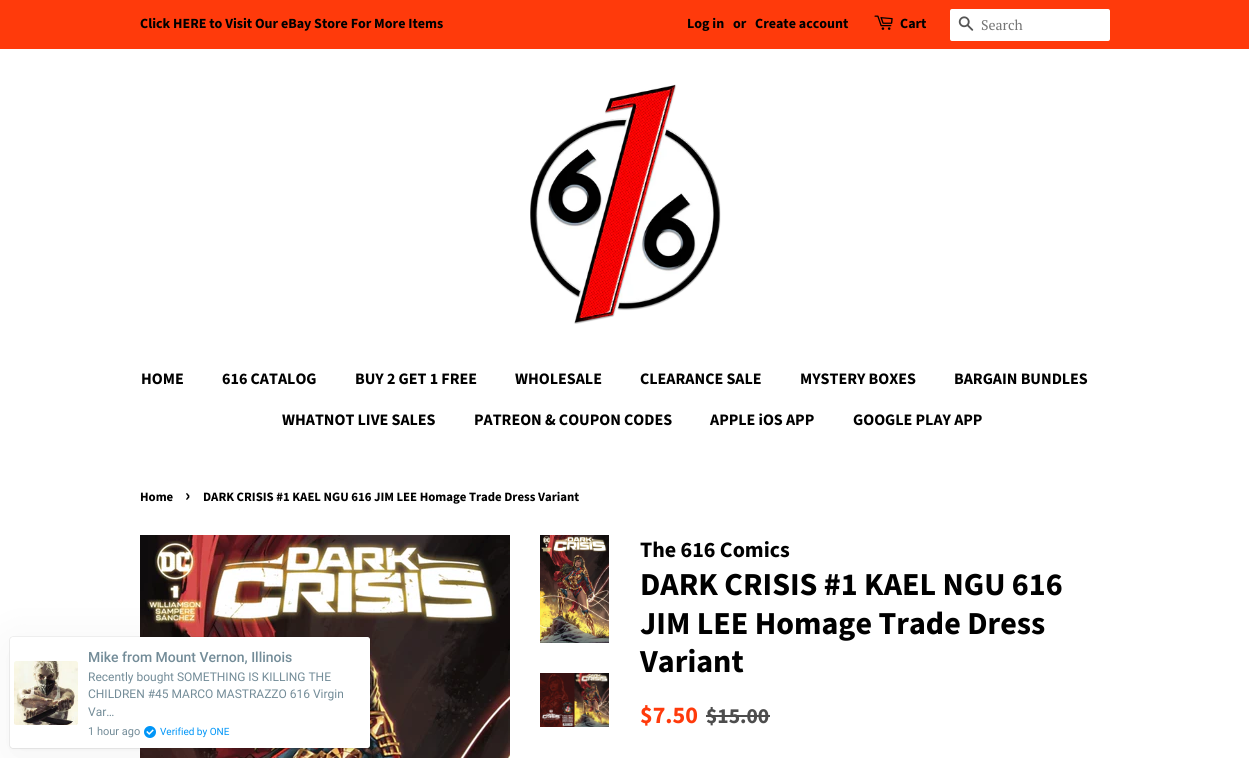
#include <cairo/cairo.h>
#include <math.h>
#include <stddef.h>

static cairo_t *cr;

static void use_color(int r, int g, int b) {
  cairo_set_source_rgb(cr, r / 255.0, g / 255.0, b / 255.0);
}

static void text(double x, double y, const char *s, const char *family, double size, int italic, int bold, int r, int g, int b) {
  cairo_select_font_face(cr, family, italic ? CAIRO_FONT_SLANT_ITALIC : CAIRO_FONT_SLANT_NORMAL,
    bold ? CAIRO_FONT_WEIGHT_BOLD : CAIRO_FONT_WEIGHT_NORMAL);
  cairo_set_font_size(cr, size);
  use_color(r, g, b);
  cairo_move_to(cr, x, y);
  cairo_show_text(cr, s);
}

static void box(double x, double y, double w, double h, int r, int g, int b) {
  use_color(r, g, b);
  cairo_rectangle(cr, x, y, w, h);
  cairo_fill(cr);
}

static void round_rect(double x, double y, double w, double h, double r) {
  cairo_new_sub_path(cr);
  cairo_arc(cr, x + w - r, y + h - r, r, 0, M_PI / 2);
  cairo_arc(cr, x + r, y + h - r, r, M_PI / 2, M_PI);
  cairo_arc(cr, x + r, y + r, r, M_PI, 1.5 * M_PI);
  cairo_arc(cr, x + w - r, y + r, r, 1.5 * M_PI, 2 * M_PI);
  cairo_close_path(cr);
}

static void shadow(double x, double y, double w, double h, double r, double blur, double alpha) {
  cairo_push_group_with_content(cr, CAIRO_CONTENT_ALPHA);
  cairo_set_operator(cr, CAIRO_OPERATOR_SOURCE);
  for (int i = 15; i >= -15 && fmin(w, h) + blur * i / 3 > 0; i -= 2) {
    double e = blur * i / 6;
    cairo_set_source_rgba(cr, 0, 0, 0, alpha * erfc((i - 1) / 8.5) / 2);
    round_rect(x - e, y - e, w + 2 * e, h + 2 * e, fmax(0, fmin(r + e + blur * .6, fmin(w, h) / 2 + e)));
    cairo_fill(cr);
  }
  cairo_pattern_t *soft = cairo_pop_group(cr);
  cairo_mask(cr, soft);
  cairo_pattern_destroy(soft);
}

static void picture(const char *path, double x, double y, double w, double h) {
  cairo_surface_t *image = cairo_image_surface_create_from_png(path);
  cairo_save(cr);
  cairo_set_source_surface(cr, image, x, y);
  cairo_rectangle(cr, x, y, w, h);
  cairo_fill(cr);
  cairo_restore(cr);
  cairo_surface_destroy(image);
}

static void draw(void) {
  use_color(255, 255, 255);
  cairo_paint(cr);
  box(0, 0, 1249, 49, 255, 58, 11);
  picture("img_01.png", 874, 15, 19, 15);
  use_color(255, 255, 255);
  round_rect(950, 9, 160, 32, 2);
  cairo_fill(cr);
  picture("img_02.png", 958, 16, 16, 15);
  picture("img_03.png", 530, 84, 191, 240);
  picture("img_04.png", 140, 535, 370, 223);
  picture("img_05.png", 540, 535, 69, 108);
  picture("img_06.png", 540, 673, 69, 54);
  box(706, 715, 64, 2, 77, 77, 77);
  use_color(0, 0, 0);
  shadow(10, 645, 360, 111, 2.5, 25, 0.05);
  shadow(10, 638, 360, 111, 2.5, 1, 0.05);
  shadow(10, 637, 360, 111, 2.5, 0.5, 0.2);
  use_color(255, 255, 255);
  round_rect(10, 637, 360, 111, 2.5);
  cairo_fill(cr);
  picture("img_07.png", 14, 661, 64, 64);
  picture("img_08.png", 144, 726, 12, 12);
  text(140, 28, "Click HERE to Visit Our eBay Store For More Items", "Source Sans Pro", 14, 0, 1, 0, 0, 0);
  text(687, 28, "Log in", "Source Sans Pro", 14, 0, 1, 0, 0, 0);
  text(733, 28, "or", "Source Sans Pro", 14, 0, 1, 0, 0, 0);
  text(755, 28, "Create account", "Source Sans Pro", 14, 0, 1, 0, 0, 0);
  text(900, 28, "Cart", "Source Sans Pro", 14, 0, 1, 0, 0, 0);
  text(981, 30, "Search", "PT Serif", 14, 0, 0, 117, 117, 117);
  text(141, 384, "HOME", "Source Sans Pro", 16, 0, 1, 0, 0, 0);
  text(222, 384, "616 CATALOG", "Source Sans Pro", 16, 0, 1, 0, 0, 0);
  text(355, 384, "BUY 2 GET 1 FREE", "Source Sans Pro", 16, 0, 1, 0, 0, 0);
  text(515, 384, "WHOLESALE", "Source Sans Pro", 16, 0, 1, 0, 0, 0);
  text(640, 384, "CLEARANCE SALE", "Source Sans Pro", 16, 0, 1, 0, 0, 0);
  text(800, 384, "MYSTERY BOXES", "Source Sans Pro", 16, 0, 1, 0, 0, 0);
  text(954, 384, "BARGAIN BUNDLES", "Source Sans Pro", 16, 0, 1, 0, 0, 0);
  text(282, 425, "WHATNOT LIVE SALES", "Source Sans Pro", 16, 0, 1, 0, 0, 0);
  text(474, 425, "PATREON & COUPON CODES", "Source Sans Pro", 16, 0, 1, 0, 0, 0);
  text(710, 425, "APPLE iOS APP", "Source Sans Pro", 16, 0, 1, 0, 0, 0);
  text(853, 425, "GOOGLE PLAY APP", "Source Sans Pro", 16, 0, 1, 0, 0, 0);
  text(140, 501, "Home", "Source Sans Pro", 12.75, 0, 1, 0, 0, 0);
  text(185, 501, "›", "Source Sans Pro", 18, 0, 1, 0, 0, 0);
  text(203, 501, "DARK CRISIS #1 KAEL NGU 616 JIM LEE Homage Trade Dress Variant", "Source Sans Pro", 12.75, 0, 1, 0, 0, 0);
  text(640, 557, "The 616 Comics", "Source Sans Pro", 22, 0, 1, 0, 0, 0);
  text(640, 595, "DARK CRISIS #1 KAEL NGU 616", "Source Sans Pro", 32, 0, 1, 0, 0, 0);
  text(640, 634, "JIM LEE Homage Trade Dress", "Source Sans Pro", 32, 0, 1, 0, 0, 0);
  text(640, 672, "Variant", "Source Sans Pro", 32, 0, 1, 0, 0, 0);
  text(640, 723, "$7.50", "Source Sans Pro", 24, 0, 1, 255, 58, 11);
  text(706, 723, "$15.00", "Source Sans Pro", 21.5, 0, 1, 77, 77, 77);
  text(88, 662, "Mike from Mount Vernon, Illinois", "Roboto Medium", 14, 0, 0, 115, 140, 152);
  text(88, 681, "Recently bought SOMETHING IS KILLING THE", "Roboto", 12, 0, 0, 115, 140, 152);
  text(88, 698, "CHILDREN #45 MARCO MASTRAZZO 616 Virgin", "Roboto", 12, 0, 0, 115, 140, 152);
  text(88, 716, "Var…", "Roboto", 12, 0, 0, 115, 140, 152);
  text(88, 735, "1 hour ago", "Roboto", 11, 0, 0, 115, 140, 152);
  text(160, 735, "Verified by ONE", "Roboto", 10, 0, 0, 0, 149, 247);
}

int main(void) {
  cairo_surface_t *surface = cairo_image_surface_create(CAIRO_FORMAT_RGB24, 1249, 758);
  cr = cairo_create(surface);
  cairo_font_options_t *options = cairo_font_options_create();
  cairo_font_options_set_hint_metrics(options, CAIRO_HINT_METRICS_OFF);
  cairo_font_options_set_hint_style(options, CAIRO_HINT_STYLE_NONE);
  cairo_set_font_options(cr, options);
  cairo_set_miter_limit(cr, 4);
  draw();
  cairo_surface_write_to_png(surface, "out.png");
  cairo_font_options_destroy(options);
  cairo_destroy(cr);
  cairo_surface_destroy(surface);
  return 0;
}
